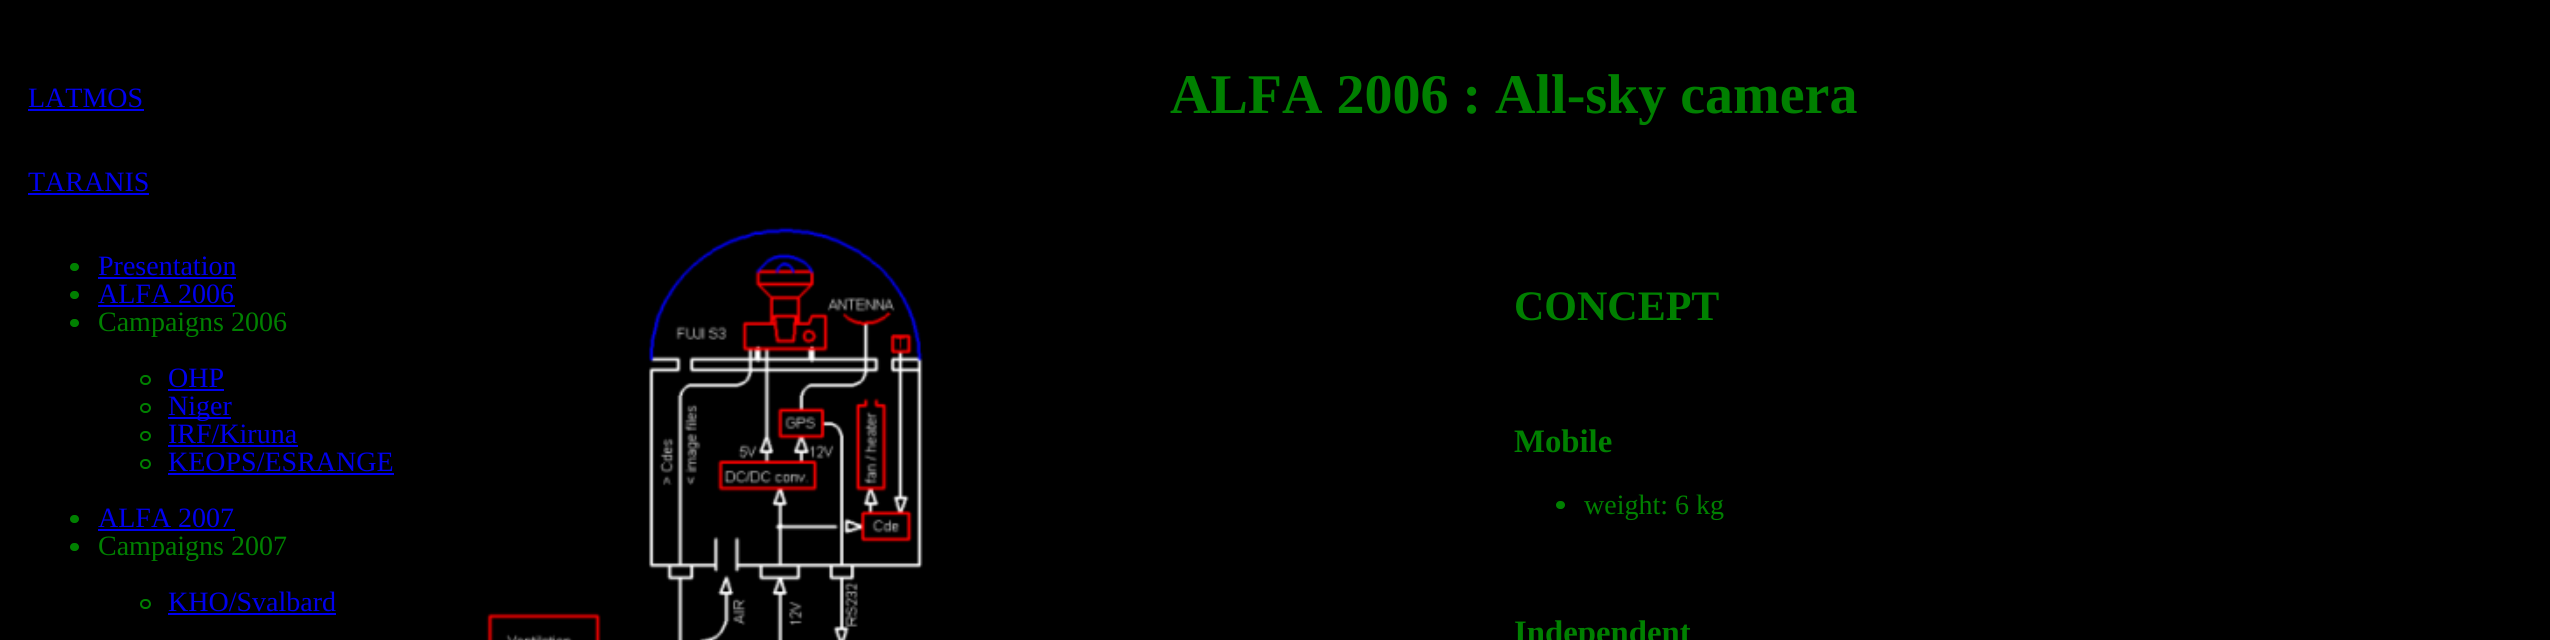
#include <cairo/cairo.h>
#include <math.h>
#include <stddef.h>

static cairo_t *cr;

static void use_color(int r, int g, int b) {
  cairo_set_source_rgb(cr, r / 255.0, g / 255.0, b / 255.0);
}

static void text(double x, double y, const char *s, const char *family, double size, int italic, int bold, int r, int g, int b) {
  cairo_select_font_face(cr, family, italic ? CAIRO_FONT_SLANT_ITALIC : CAIRO_FONT_SLANT_NORMAL,
    bold ? CAIRO_FONT_WEIGHT_BOLD : CAIRO_FONT_WEIGHT_NORMAL);
  cairo_set_font_size(cr, size);
  use_color(r, g, b);
  cairo_move_to(cr, x, y);
  cairo_show_text(cr, s);
}

static void box(double x, double y, double w, double h, int r, int g, int b) {
  use_color(r, g, b);
  cairo_rectangle(cr, x, y, w, h);
  cairo_fill(cr);
}

static void round_rect(double x, double y, double w, double h, double r) {
  cairo_new_sub_path(cr);
  cairo_arc(cr, x + w - r, y + h - r, r, 0, M_PI / 2);
  cairo_arc(cr, x + r, y + h - r, r, M_PI / 2, M_PI);
  cairo_arc(cr, x + r, y + r, r, M_PI, 1.5 * M_PI);
  cairo_arc(cr, x + w - r, y + r, r, 1.5 * M_PI, 2 * M_PI);
  cairo_close_path(cr);
}

static void picture(const char *path, double x, double y, double w, double h) {
  cairo_surface_t *image = cairo_image_surface_create_from_png(path);
  cairo_save(cr);
  cairo_set_source_surface(cr, image, x, y);
  cairo_rectangle(cr, x, y, w, h);
  cairo_fill(cr);
  cairo_restore(cr);
  cairo_surface_destroy(image);
}

static void draw(void) {
  use_color(0, 0, 0);
  cairo_paint(cr);
  box(28, 109, 116, 2, 0, 0, 238);
  box(28, 193, 121, 2, 0, 0, 238);
  use_color(0, 128, 0);
  round_rect(70, 263, 9, 8, 4);
  cairo_fill(cr);
  box(98, 277, 138, 2, 0, 0, 238);
  use_color(0, 128, 0);
  round_rect(70, 291, 9, 8, 4);
  cairo_fill(cr);
  box(98, 305, 137, 2, 0, 0, 238);
  use_color(0, 128, 0);
  round_rect(70, 319, 9, 8, 4);
  cairo_fill(cr);
  round_rect(141, 376, 9, 8, 4);
  cairo_stroke(cr);
  box(168, 389, 56, 2, 0, 0, 238);
  round_rect(141, 404, 9, 8, 4);
  use_color(0, 128, 0);
  cairo_stroke(cr);
  box(168, 417, 63, 2, 0, 0, 238);
  round_rect(141, 432, 9, 8, 4);
  use_color(0, 128, 0);
  cairo_stroke(cr);
  box(168, 445, 130, 2, 0, 0, 238);
  round_rect(141, 460, 9, 8, 4);
  use_color(0, 128, 0);
  cairo_stroke(cr);
  box(168, 473, 226, 2, 0, 0, 238);
  use_color(0, 128, 0);
  round_rect(70, 515, 9, 8, 4);
  cairo_fill(cr);
  box(98, 529, 137, 2, 0, 0, 238);
  use_color(0, 128, 0);
  round_rect(70, 543, 9, 8, 4);
  cairo_fill(cr);
  round_rect(141, 600, 9, 8, 4);
  cairo_stroke(cr);
  box(168, 613, 168, 2, 0, 0, 238);
  picture("img_01.png", 486, 227, 437, 413);
  use_color(0, 128, 0);
  round_rect(1556, 501, 9, 8, 4);
  cairo_fill(cr);
  text(28, 107, "LATMOS", "Liberation Serif", 28, 0, 0, 0, 0, 238);
  text(28, 191, "TARANIS", "Liberation Serif", 28, 0, 0, 0, 0, 238);
  text(98, 275, "Presentation", "Liberation Serif", 28, 0, 0, 0, 0, 238);
  text(98, 303, "ALFA 2006", "Liberation Serif", 28, 0, 0, 0, 0, 238);
  text(98, 331, "Campaigns 2006", "Liberation Serif", 28, 0, 0, 0, 128, 0);
  text(168, 387, "OHP", "Liberation Serif", 28, 0, 0, 0, 0, 238);
  text(168, 415, "Niger", "Liberation Serif", 28, 0, 0, 0, 0, 238);
  text(168, 443, "IRF/Kiruna", "Liberation Serif", 28, 0, 0, 0, 0, 238);
  text(168, 471, "KEOPS/ESRANGE", "Liberation Serif", 28, 0, 0, 0, 0, 238);
  text(98, 527, "ALFA 2007", "Liberation Serif", 28, 0, 0, 0, 0, 238);
  text(98, 555, "Campaigns 2007", "Liberation Serif", 28, 0, 0, 0, 128, 0);
  text(168, 611, "KHO/Svalbard", "Liberation Serif", 28, 0, 0, 0, 0, 238);
  text(1170, 113, "ALFA 2006 : All-sky camera", "Liberation Serif", 56, 0, 1, 0, 128, 0);
  text(1514, 320, "CONCEPT", "Liberation Serif", 42, 0, 1, 0, 128, 0);
  text(1514, 452, "Mobile", "Liberation Serif", 32.75, 0, 1, 0, 128, 0);
  text(1584, 514, "weight: 6 kg", "Liberation Serif", 28, 0, 0, 0, 128, 0);
  text(1514, 643, "Independent", "Liberation Serif", 32.75, 0, 1, 0, 128, 0);
}

int main(void) {
  cairo_surface_t *surface = cairo_image_surface_create(CAIRO_FORMAT_RGB24, 2550, 640);
  cr = cairo_create(surface);
  cairo_font_options_t *options = cairo_font_options_create();
  cairo_font_options_set_hint_metrics(options, CAIRO_HINT_METRICS_OFF);
  cairo_font_options_set_hint_style(options, CAIRO_HINT_STYLE_NONE);
  cairo_set_font_options(cr, options);
  cairo_set_miter_limit(cr, 4);
  draw();
  cairo_surface_write_to_png(surface, "out.png");
  cairo_font_options_destroy(options);
  cairo_destroy(cr);
  cairo_surface_destroy(surface);
  return 0;
}
